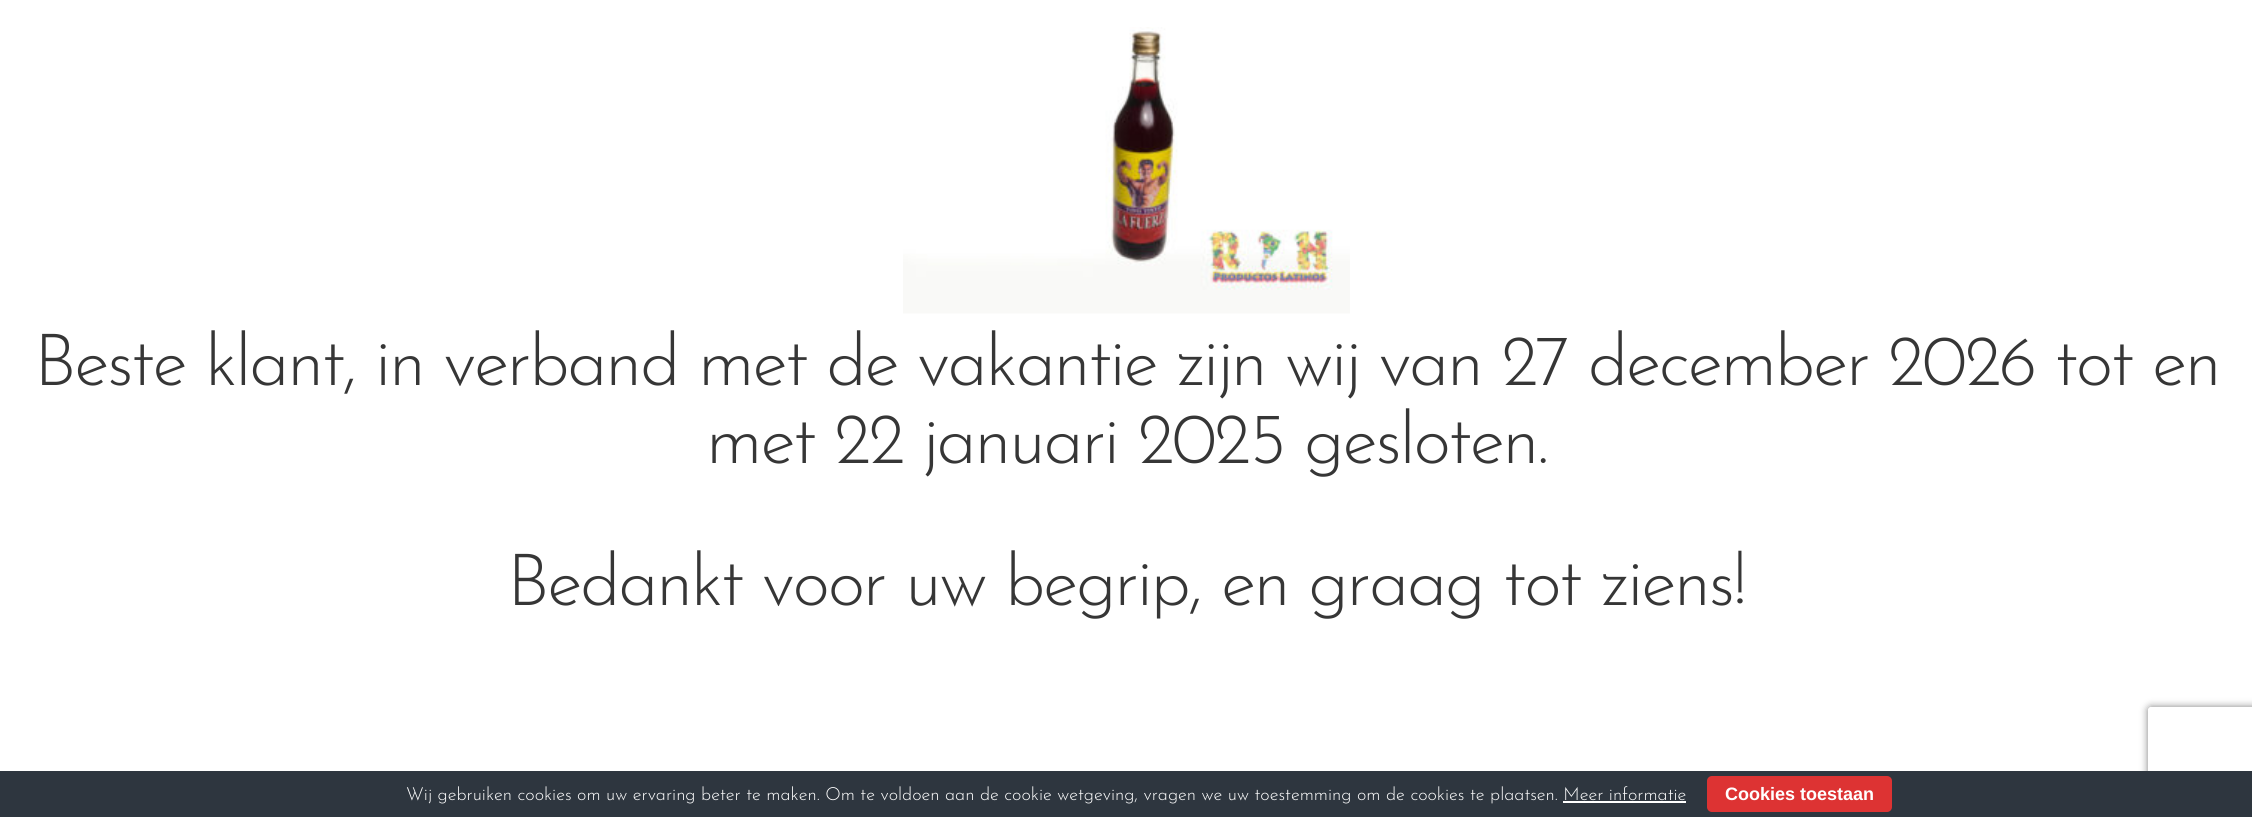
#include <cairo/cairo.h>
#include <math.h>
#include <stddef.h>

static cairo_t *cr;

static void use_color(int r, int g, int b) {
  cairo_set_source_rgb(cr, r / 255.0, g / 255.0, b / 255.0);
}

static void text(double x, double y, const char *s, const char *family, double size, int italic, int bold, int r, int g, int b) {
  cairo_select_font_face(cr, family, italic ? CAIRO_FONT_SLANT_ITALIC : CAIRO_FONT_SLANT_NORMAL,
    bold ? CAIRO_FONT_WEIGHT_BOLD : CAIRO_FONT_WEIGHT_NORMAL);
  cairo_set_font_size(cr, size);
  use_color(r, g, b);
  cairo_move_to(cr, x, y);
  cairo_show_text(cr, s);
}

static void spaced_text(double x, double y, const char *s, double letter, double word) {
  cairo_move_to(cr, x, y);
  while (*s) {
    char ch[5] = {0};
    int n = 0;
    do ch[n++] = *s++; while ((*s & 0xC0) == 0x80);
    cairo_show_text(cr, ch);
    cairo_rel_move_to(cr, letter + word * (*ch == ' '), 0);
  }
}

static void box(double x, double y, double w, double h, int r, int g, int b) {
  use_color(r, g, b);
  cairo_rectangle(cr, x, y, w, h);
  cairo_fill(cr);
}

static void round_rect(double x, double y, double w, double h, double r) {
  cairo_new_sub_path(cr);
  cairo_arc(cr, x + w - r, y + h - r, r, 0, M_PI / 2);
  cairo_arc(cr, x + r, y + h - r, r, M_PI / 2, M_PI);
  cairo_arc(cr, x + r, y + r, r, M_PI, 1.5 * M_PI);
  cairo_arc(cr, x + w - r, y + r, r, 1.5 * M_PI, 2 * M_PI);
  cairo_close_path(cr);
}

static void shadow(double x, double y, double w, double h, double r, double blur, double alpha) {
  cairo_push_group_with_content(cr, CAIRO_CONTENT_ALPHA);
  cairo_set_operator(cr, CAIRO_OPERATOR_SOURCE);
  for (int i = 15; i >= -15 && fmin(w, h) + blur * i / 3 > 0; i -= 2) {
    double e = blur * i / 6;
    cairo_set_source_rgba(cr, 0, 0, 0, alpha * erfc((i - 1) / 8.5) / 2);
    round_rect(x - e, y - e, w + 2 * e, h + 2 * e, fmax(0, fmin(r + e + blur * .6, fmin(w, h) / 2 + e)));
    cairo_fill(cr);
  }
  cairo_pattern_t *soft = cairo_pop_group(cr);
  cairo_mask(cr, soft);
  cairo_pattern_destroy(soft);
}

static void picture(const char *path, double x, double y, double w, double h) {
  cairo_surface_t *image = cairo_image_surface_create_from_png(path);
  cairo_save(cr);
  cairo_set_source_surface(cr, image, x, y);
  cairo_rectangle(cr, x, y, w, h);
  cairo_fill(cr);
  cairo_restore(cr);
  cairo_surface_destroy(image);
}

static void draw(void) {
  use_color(255, 255, 255);
  cairo_paint(cr);
  picture("img_01.png", 903, 27, 447, 287);
  cairo_save(cr);
  cairo_set_fill_rule(cr, CAIRO_FILL_RULE_EVEN_ODD);
  cairo_new_path(cr);
  cairo_move_to(cr, 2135, 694);
  cairo_line_to(cr, 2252, 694);
  cairo_line_to(cr, 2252, 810);
  cairo_line_to(cr, 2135, 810);
  cairo_close_path(cr);
  cairo_move_to(cr, 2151, 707);
  cairo_line_to(cr, 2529, 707);
  cairo_curve_to(cr, 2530.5, 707, 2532, 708.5, 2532, 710);
  cairo_line_to(cr, 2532, 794);
  cairo_curve_to(cr, 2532, 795.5, 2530.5, 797, 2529, 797);
  cairo_line_to(cr, 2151, 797);
  cairo_curve_to(cr, 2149.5, 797, 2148, 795.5, 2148, 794);
  cairo_line_to(cr, 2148, 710);
  cairo_curve_to(cr, 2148, 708.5, 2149.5, 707, 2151, 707);
  cairo_close_path(cr);
  cairo_clip(cr);
  use_color(128, 128, 128);
  shadow(2148, 707, 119, 90, 3, 4, 1);
  cairo_restore(cr);
  box(0, 771, 2252, 46, 46, 54, 63);
  use_color(221, 51, 51);
  round_rect(1707, 776, 185, 36, 5);
  cairo_fill(cr);
  box(1563, 801, 123, 2, 255, 255, 255);
  cairo_select_font_face(cr, "Josefin Sans Light", CAIRO_FONT_SLANT_NORMAL, CAIRO_FONT_WEIGHT_NORMAL);
  cairo_set_font_size(cr, 72);
  use_color(54, 54, 54);
  spaced_text(34, 385, "Beste klant, in verband met de vakantie zijn wij van 27 december 2026 tot en", -2.25, 0);
  spaced_text(706, 463, "met 22 januari 2025 gesloten.", -2.25, 0);
  spaced_text(507, 605, "Bedankt voor uw begrip, en graag tot ziens!", -2.25, 0);
  text(406, 800, "Wij gebruiken cookies om uw ervaring beter te maken. Om te voldoen aan de cookie wetgeving, vragen we uw toestemming om de cookies te plaatsen. Meer informatie", "Josefin Sans Light", 18, 0, 0, 255, 255, 255);
  text(1725, 800, "Cookies toestaan", "Liberation Sans", 18, 0, 1, 255, 255, 255);
}

int main(void) {
  cairo_surface_t *surface = cairo_image_surface_create(CAIRO_FORMAT_RGB24, 2252, 817);
  cr = cairo_create(surface);
  cairo_font_options_t *options = cairo_font_options_create();
  cairo_font_options_set_hint_metrics(options, CAIRO_HINT_METRICS_OFF);
  cairo_font_options_set_hint_style(options, CAIRO_HINT_STYLE_NONE);
  cairo_set_font_options(cr, options);
  cairo_set_miter_limit(cr, 4);
  draw();
  cairo_surface_write_to_png(surface, "out.png");
  cairo_font_options_destroy(options);
  cairo_destroy(cr);
  cairo_surface_destroy(surface);
  return 0;
}
